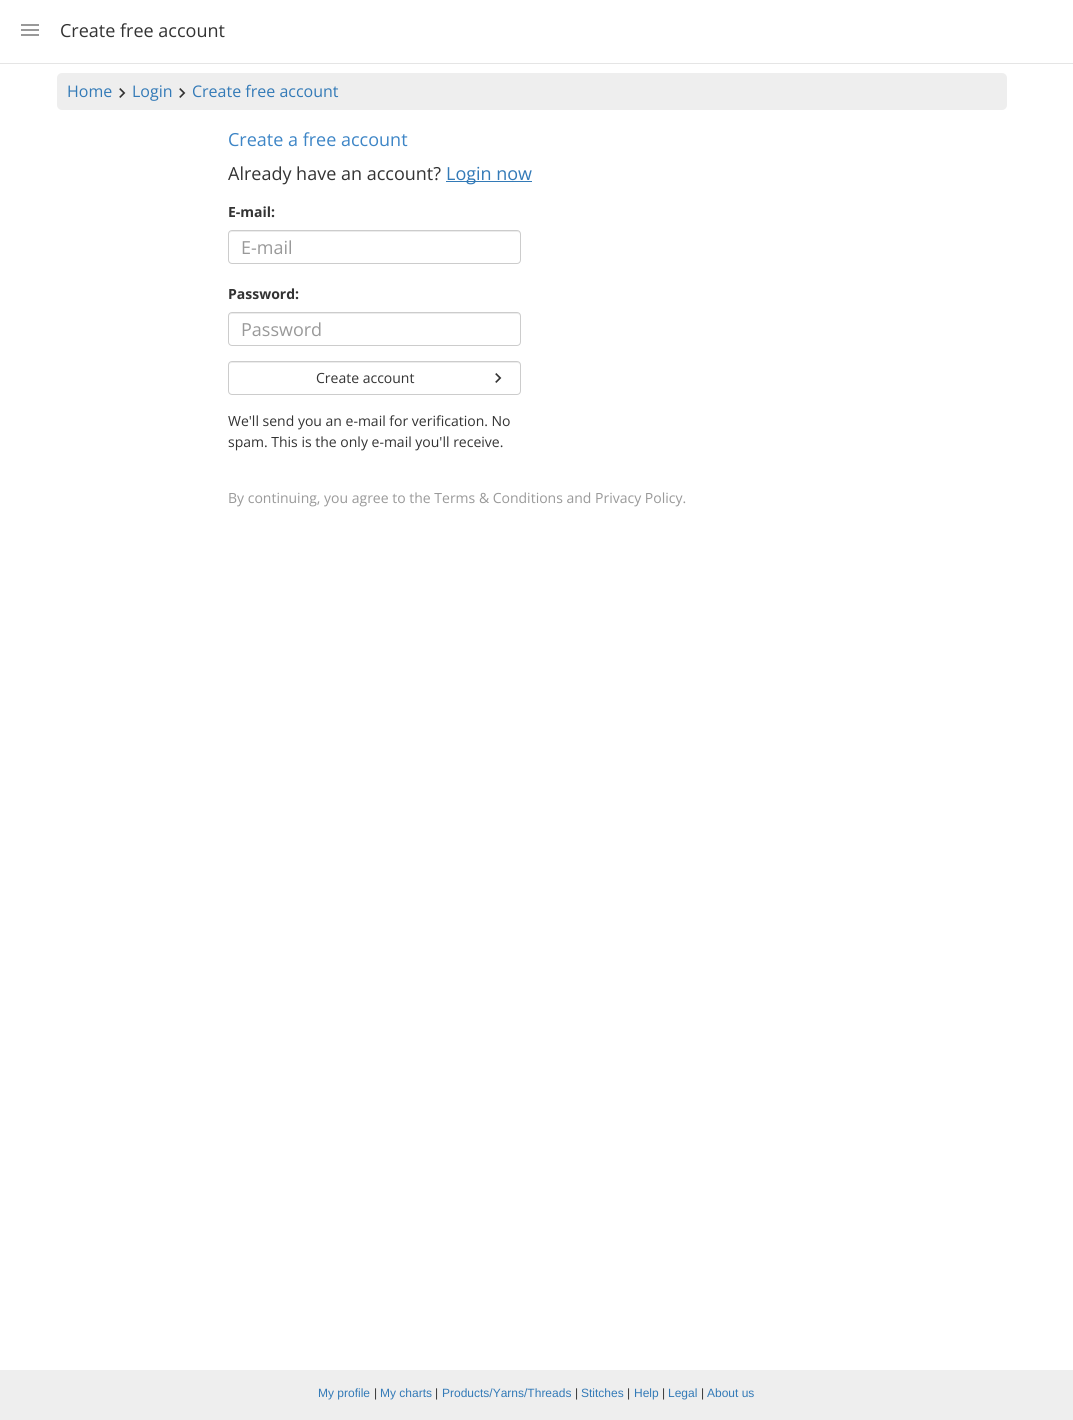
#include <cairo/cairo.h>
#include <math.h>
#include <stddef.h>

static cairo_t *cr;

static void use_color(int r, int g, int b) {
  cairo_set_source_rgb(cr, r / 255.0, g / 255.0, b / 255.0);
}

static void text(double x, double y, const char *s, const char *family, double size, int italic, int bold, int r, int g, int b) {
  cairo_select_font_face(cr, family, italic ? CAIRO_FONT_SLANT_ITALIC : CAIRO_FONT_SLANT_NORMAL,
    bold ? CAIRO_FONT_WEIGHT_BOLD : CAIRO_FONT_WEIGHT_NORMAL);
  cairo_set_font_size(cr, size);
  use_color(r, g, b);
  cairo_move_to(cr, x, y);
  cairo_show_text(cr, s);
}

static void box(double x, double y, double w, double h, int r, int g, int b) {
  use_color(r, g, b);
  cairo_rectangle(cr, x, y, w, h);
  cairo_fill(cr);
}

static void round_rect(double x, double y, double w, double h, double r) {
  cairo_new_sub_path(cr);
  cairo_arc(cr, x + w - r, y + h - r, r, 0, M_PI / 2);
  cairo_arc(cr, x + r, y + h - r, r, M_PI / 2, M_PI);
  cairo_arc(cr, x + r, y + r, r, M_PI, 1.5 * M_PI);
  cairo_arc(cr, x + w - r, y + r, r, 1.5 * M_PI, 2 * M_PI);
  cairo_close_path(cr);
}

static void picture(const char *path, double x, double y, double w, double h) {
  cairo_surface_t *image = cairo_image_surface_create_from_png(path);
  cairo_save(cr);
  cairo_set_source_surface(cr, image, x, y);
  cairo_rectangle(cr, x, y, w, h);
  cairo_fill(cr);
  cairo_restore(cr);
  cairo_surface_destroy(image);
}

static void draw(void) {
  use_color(255, 255, 255);
  cairo_paint(cr);
  box(0, 63, 1073, 1, 229, 229, 229);
  picture("img_01.png", 21, 24, 18, 12);
  use_color(238, 238, 238);
  round_rect(57, 73, 950, 37, 5);
  cairo_fill(cr);
  picture("img_02.png", 119, 88, 7, 10);
  picture("img_02.png", 179, 88, 7, 10);
  box(446, 181, 86, 1, 51, 122, 183);
  use_color(236, 236, 236);
  cairo_new_path(cr);
  cairo_move_to(cr, 232, 232);
  cairo_line_to(cr, 517, 232);
  cairo_curve_to(cr, 519, 232, 520, 233, 520, 235);
  cairo_curve_to(cr, 520, 233, 519, 231, 517, 231);
  cairo_line_to(cr, 232, 231);
  cairo_curve_to(cr, 230, 231, 229, 233, 229, 235);
  cairo_curve_to(cr, 229, 233, 230, 232, 232, 232);
  cairo_close_path(cr);
  cairo_fill(cr);
  round_rect(228.5, 230.5, 292, 33, 3.5);
  use_color(204, 204, 204);
  cairo_set_line_width(cr, 1);
  cairo_stroke(cr);
  use_color(236, 236, 236);
  cairo_new_path(cr);
  cairo_move_to(cr, 232, 314);
  cairo_line_to(cr, 517, 314);
  cairo_curve_to(cr, 519, 314, 520, 315, 520, 317);
  cairo_curve_to(cr, 520, 315, 519, 313, 517, 313);
  cairo_line_to(cr, 232, 313);
  cairo_curve_to(cr, 230, 313, 229, 315, 229, 317);
  cairo_curve_to(cr, 229, 315, 230, 314, 232, 314);
  cairo_close_path(cr);
  cairo_fill(cr);
  round_rect(228.5, 312.5, 292, 33, 3.5);
  use_color(204, 204, 204);
  cairo_stroke(cr);
  use_color(236, 236, 236);
  cairo_new_path(cr);
  cairo_move_to(cr, 232, 363);
  cairo_line_to(cr, 517, 363);
  cairo_curve_to(cr, 519, 363, 520, 364, 520, 366);
  cairo_curve_to(cr, 520, 364, 519, 362, 517, 362);
  cairo_line_to(cr, 232, 362);
  cairo_curve_to(cr, 230, 362, 229, 364, 229, 366);
  cairo_curve_to(cr, 229, 364, 230, 363, 232, 363);
  cairo_close_path(cr);
  cairo_fill(cr);
  round_rect(228.5, 361.5, 292, 33, 3.5);
  use_color(204, 204, 204);
  cairo_stroke(cr);
  picture("img_03.png", 495, 373, 7, 10);
  box(0, 1370, 1073, 50, 238, 238, 238);
  text(60, 37, "Create free account", "Open Sans", 18, 0, 0, 51, 51, 51);
  text(67, 97, "Home", "Open Sans", 16, 0, 0, 51, 122, 183);
  text(132, 97, "Login", "Open Sans", 16, 0, 0, 51, 122, 183);
  text(192, 97, "Create free account", "Open Sans", 16, 0, 0, 51, 122, 183);
  text(228, 146, "Create a free account", "Open Sans", 18, 0, 0, 61, 133, 198);
  text(228, 180, "Already have an account?", "Open Sans", 18, 0, 0, 51, 51, 51);
  text(446, 180, "Login now", "Open Sans", 18, 0, 0, 51, 122, 183);
  text(228, 217, "E-mail:", "Open Sans", 14, 0, 1, 51, 51, 51);
  text(241, 254, "E-mail", "Open Sans", 18, 0, 0, 153, 153, 153);
  text(228, 299, "Password:", "Open Sans", 14, 0, 1, 51, 51, 51);
  text(241, 336, "Password", "Open Sans", 18, 0, 0, 153, 153, 153);
  text(316, 383, "Create account", "Open Sans", 14, 0, 0, 51, 51, 51);
  text(228, 426, "We'll send you an e-mail for verification. No", "Open Sans", 14, 0, 0, 51, 51, 51);
  text(228, 447, "spam. This is the only e-mail you'll receive.", "Open Sans", 14, 0, 0, 51, 51, 51);
  text(228, 503, "By continuing, you agree to the Terms & Conditions and Privacy Policy.", "Open Sans", 14, 0, 0, 153, 153, 153);
  text(318, 1397, "My profile", "Liberation Sans", 12, 0, 0, 51, 122, 183);
  text(374, 1397, "|", "Liberation Sans", 12, 0, 0, 51, 51, 51);
  text(380, 1397, "My charts", "Liberation Sans", 12, 0, 0, 51, 122, 183);
  text(435, 1397, "|", "Liberation Sans", 12, 0, 0, 51, 51, 51);
  text(442, 1397, "Products/Yarns/Threads", "Liberation Sans", 12, 0, 0, 51, 122, 183);
  text(575, 1397, "|", "Liberation Sans", 12, 0, 0, 51, 51, 51);
  text(581, 1397, "Stitches", "Liberation Sans", 12, 0, 0, 51, 122, 183);
  text(627, 1397, "|", "Liberation Sans", 12, 0, 0, 51, 51, 51);
  text(634, 1397, "Help", "Liberation Sans", 12, 0, 0, 51, 122, 183);
  text(662, 1397, "|", "Liberation Sans", 12, 0, 0, 51, 51, 51);
  text(668, 1397, "Legal", "Liberation Sans", 12, 0, 0, 51, 122, 183);
  text(701, 1397, "|", "Liberation Sans", 12, 0, 0, 51, 51, 51);
  text(707, 1397, "About us", "Liberation Sans", 12, 0, 0, 51, 122, 183);
}

int main(void) {
  cairo_surface_t *surface = cairo_image_surface_create(CAIRO_FORMAT_RGB24, 1073, 1420);
  cr = cairo_create(surface);
  cairo_font_options_t *options = cairo_font_options_create();
  cairo_font_options_set_hint_metrics(options, CAIRO_HINT_METRICS_OFF);
  cairo_font_options_set_hint_style(options, CAIRO_HINT_STYLE_NONE);
  cairo_set_font_options(cr, options);
  cairo_set_miter_limit(cr, 4);
  draw();
  cairo_surface_write_to_png(surface, "out.png");
  cairo_font_options_destroy(options);
  cairo_destroy(cr);
  cairo_surface_destroy(surface);
  return 0;
}
